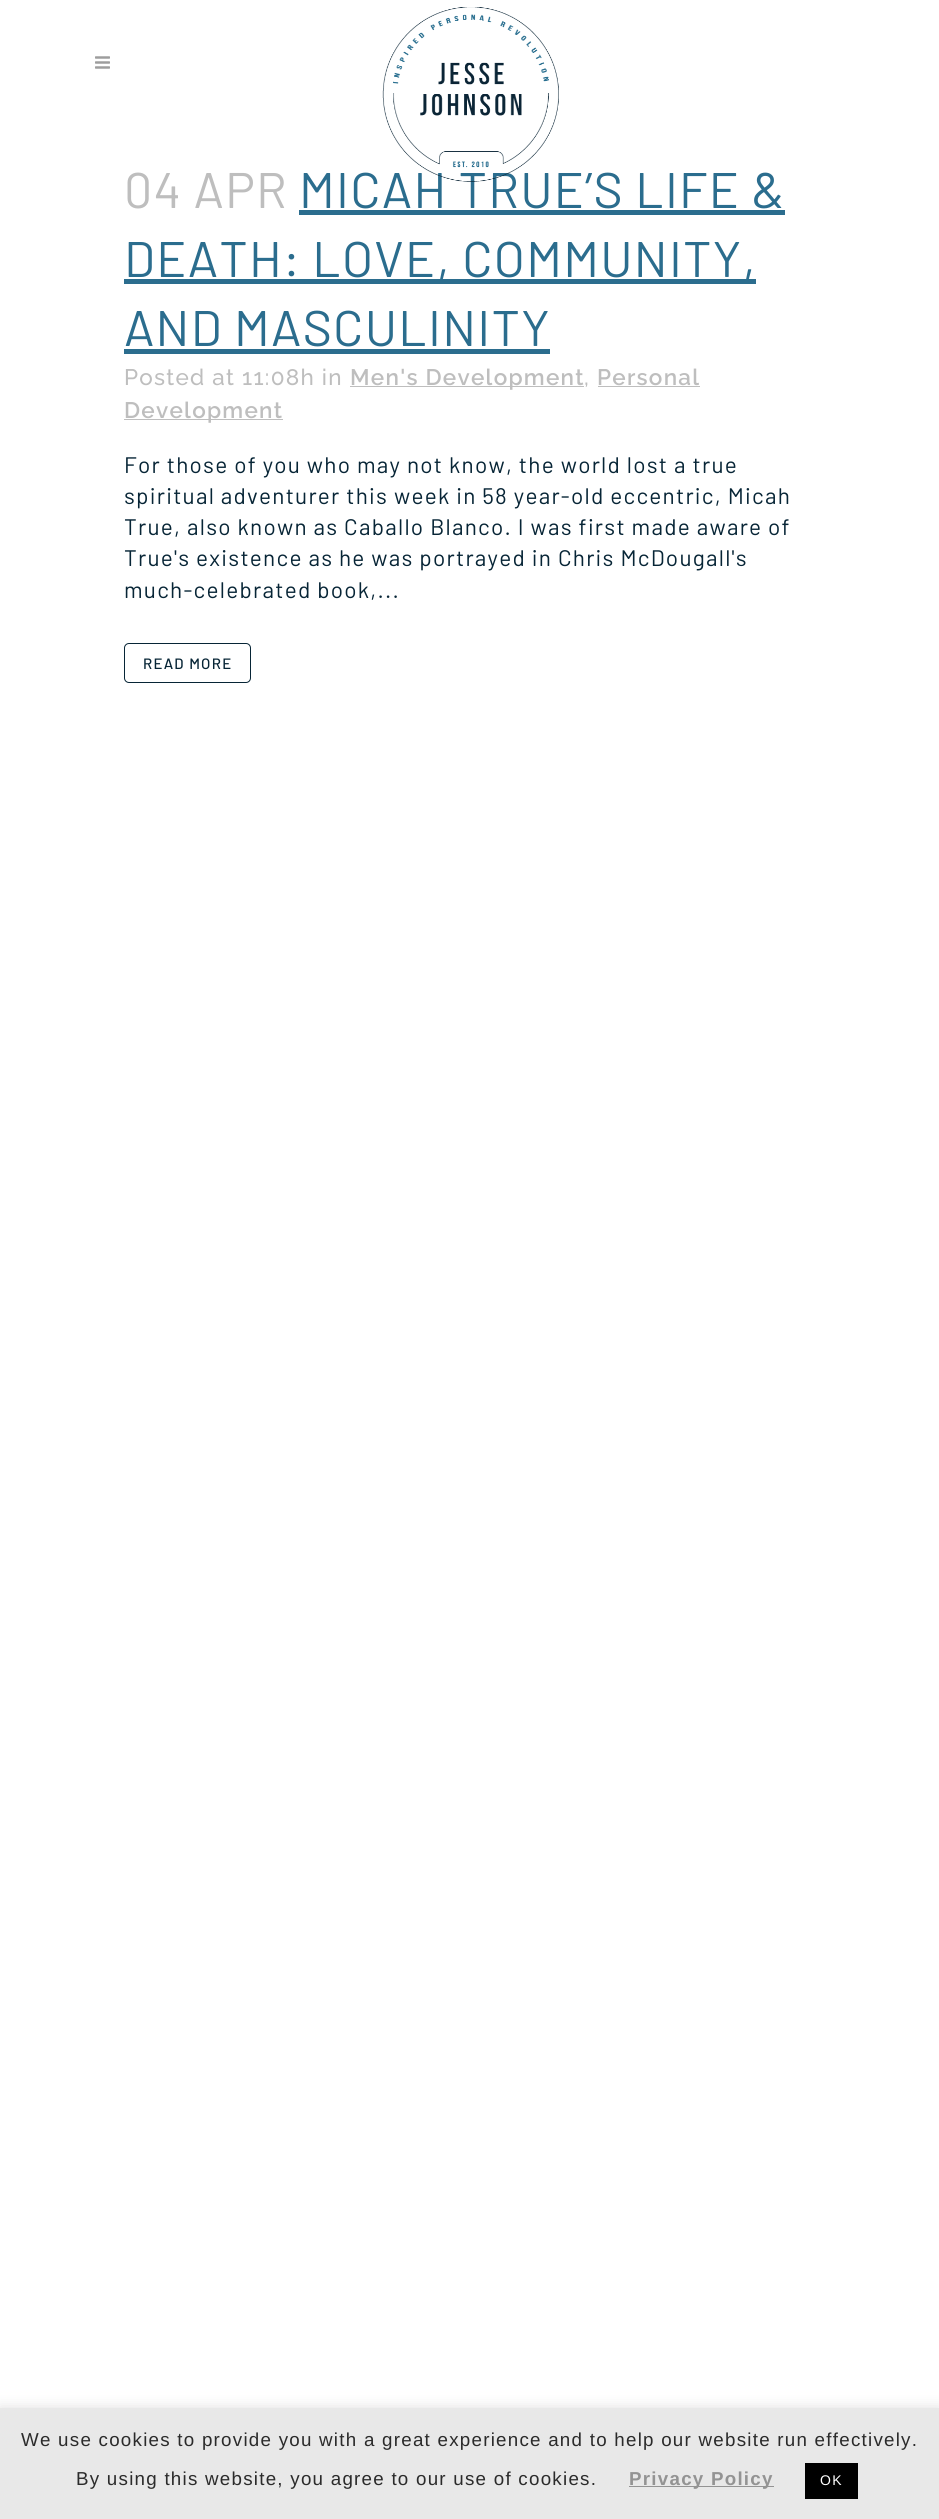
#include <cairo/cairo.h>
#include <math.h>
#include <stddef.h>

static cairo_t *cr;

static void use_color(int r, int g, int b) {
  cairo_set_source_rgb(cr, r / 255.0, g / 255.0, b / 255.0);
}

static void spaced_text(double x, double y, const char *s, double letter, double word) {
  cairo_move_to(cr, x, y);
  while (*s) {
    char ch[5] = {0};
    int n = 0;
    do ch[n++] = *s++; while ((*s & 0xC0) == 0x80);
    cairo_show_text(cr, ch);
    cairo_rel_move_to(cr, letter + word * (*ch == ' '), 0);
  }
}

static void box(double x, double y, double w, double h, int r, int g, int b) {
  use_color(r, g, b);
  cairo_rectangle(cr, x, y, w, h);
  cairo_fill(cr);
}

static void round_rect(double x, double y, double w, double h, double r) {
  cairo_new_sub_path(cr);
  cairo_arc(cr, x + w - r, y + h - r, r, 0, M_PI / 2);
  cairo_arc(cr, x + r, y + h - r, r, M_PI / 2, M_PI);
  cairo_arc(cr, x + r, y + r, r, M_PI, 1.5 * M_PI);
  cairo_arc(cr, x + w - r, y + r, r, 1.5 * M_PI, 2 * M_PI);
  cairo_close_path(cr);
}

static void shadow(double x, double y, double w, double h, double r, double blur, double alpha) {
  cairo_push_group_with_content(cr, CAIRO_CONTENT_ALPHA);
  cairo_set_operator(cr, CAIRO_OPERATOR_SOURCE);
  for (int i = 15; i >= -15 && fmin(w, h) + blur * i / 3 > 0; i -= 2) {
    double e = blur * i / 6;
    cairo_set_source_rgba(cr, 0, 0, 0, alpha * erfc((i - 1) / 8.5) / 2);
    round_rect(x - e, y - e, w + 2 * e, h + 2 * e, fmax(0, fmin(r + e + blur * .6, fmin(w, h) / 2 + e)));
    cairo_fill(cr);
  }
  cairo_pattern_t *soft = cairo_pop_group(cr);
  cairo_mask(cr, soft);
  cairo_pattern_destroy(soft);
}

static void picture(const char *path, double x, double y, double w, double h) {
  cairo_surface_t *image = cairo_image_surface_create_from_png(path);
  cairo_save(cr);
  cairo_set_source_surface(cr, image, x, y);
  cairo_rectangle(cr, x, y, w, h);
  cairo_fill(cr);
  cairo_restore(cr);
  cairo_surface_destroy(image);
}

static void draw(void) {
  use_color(255, 255, 255);
  cairo_paint(cr);
  picture("img_01.png", 95, 56, 15, 13);
  box(299, 210, 486, 5, 43, 109, 142);
  box(124, 279, 632, 5, 43, 109, 142);
  box(124, 349, 426, 5, 43, 109, 142);
  box(350, 386, 234, 1, 190, 190, 190);
  box(598, 386, 102, 1, 190, 190, 190);
  box(124, 419, 159, 1, 190, 190, 190);
  round_rect(124.5, 643.5, 126, 39, 4.5);
  use_color(7, 37, 54);
  cairo_set_line_width(cr, 1);
  cairo_stroke(cr);
  use_color(172, 171, 171);
  shadow(0, 2406, 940, 113, 0, 6, 0.3);
  box(0, 2408, 939, 111, 232, 232, 232);
  box(629, 2486, 145, 1, 147, 147, 147);
  box(805, 2463, 53, 36, 0, 0, 0);
  cairo_select_font_face(cr, "Barlow", CAIRO_FONT_SLANT_NORMAL, CAIRO_FONT_WEIGHT_NORMAL);
  cairo_set_font_size(cr, 50);
  use_color(190, 190, 190);
  spaced_text(124, 208, "04 APR", 1.25, 0);
  use_color(43, 109, 142);
  spaced_text(299, 208, "MICAH TRUE’S LIFE &", 1.25, 0);
  picture("img_02.png", 382, 7, 177, 175);
  spaced_text(124, 277, "DEATH: LOVE, COMMUNITY,", 1.25, 0);
  spaced_text(124, 346, "AND MASCULINITY", 1.25, 0);
  cairo_select_font_face(cr, "Raleway Medium", CAIRO_FONT_SLANT_NORMAL, CAIRO_FONT_WEIGHT_NORMAL);
  cairo_set_font_size(cr, 22.5);
  use_color(190, 190, 190);
  spaced_text(124, 385, "Posted at 11:08h in", 1.25, 0);
  cairo_select_font_face(cr, "Raleway SemiBold", CAIRO_FONT_SLANT_NORMAL, CAIRO_FONT_WEIGHT_NORMAL);
  spaced_text(350, 385, "Men's Development", 1.25, 0);
  cairo_select_font_face(cr, "Raleway Medium", CAIRO_FONT_SLANT_NORMAL, CAIRO_FONT_WEIGHT_NORMAL);
  spaced_text(584, 385, ",", 1.25, 0);
  cairo_select_font_face(cr, "Raleway SemiBold", CAIRO_FONT_SLANT_NORMAL, CAIRO_FONT_WEIGHT_NORMAL);
  spaced_text(597, 385, "Personal", 1.25, 0);
  spaced_text(124, 418, "Development", 1.25, 0);
  cairo_select_font_face(cr, "Barlow", CAIRO_FONT_SLANT_NORMAL, CAIRO_FONT_WEIGHT_NORMAL);
  use_color(7, 37, 54);
  spaced_text(124, 473, "For those of you who may not know, the world lost a true", 1.25, 0);
  spaced_text(124, 504, "spiritual adventurer this week in 58 year-old eccentric, Micah", 1.25, 0);
  spaced_text(124, 535, "True, also known as Caballo Blanco. I was first made aware of", 1.25, 0);
  spaced_text(124, 566, "True's existence as he was portrayed in Chris McDougall's", 1.25, 0);
  spaced_text(124, 598, "much-celebrated book,...", 1.25, 0);
  cairo_select_font_face(cr, "Barlow Medium", CAIRO_FONT_SLANT_NORMAL, CAIRO_FONT_WEIGHT_NORMAL);
  cairo_set_font_size(cr, 15);
  spaced_text(143, 669, "READ MORE", 1.25, 0);
  cairo_select_font_face(cr, "Liberation Sans", CAIRO_FONT_SLANT_NORMAL, CAIRO_FONT_WEIGHT_NORMAL);
  cairo_set_font_size(cr, 18.75);
  use_color(43, 43, 43);
  spaced_text(21, 2446, "We use cookies to provide you with a great experience and to help our website run effectively.", 1.25, 0);
  spaced_text(76, 2485, "By using this website, you agree to our use of cookies.", 1.25, 0);
  cairo_select_font_face(cr, "Liberation Sans", CAIRO_FONT_SLANT_NORMAL, CAIRO_FONT_WEIGHT_BOLD);
  use_color(147, 147, 147);
  spaced_text(629, 2485, "Privacy Policy", 1.25, 0);
  cairo_select_font_face(cr, "Liberation Sans", CAIRO_FONT_SLANT_NORMAL, CAIRO_FONT_WEIGHT_NORMAL);
  cairo_set_font_size(cr, 14);
  use_color(255, 255, 255);
  spaced_text(820, 2485, "OK", 1.25, 0);
}

int main(void) {
  cairo_surface_t *surface = cairo_image_surface_create(CAIRO_FORMAT_RGB24, 939, 2519);
  cr = cairo_create(surface);
  cairo_font_options_t *options = cairo_font_options_create();
  cairo_font_options_set_hint_metrics(options, CAIRO_HINT_METRICS_OFF);
  cairo_font_options_set_hint_style(options, CAIRO_HINT_STYLE_NONE);
  cairo_set_font_options(cr, options);
  cairo_set_miter_limit(cr, 4);
  draw();
  cairo_surface_write_to_png(surface, "out.png");
  cairo_font_options_destroy(options);
  cairo_destroy(cr);
  cairo_surface_destroy(surface);
  return 0;
}
